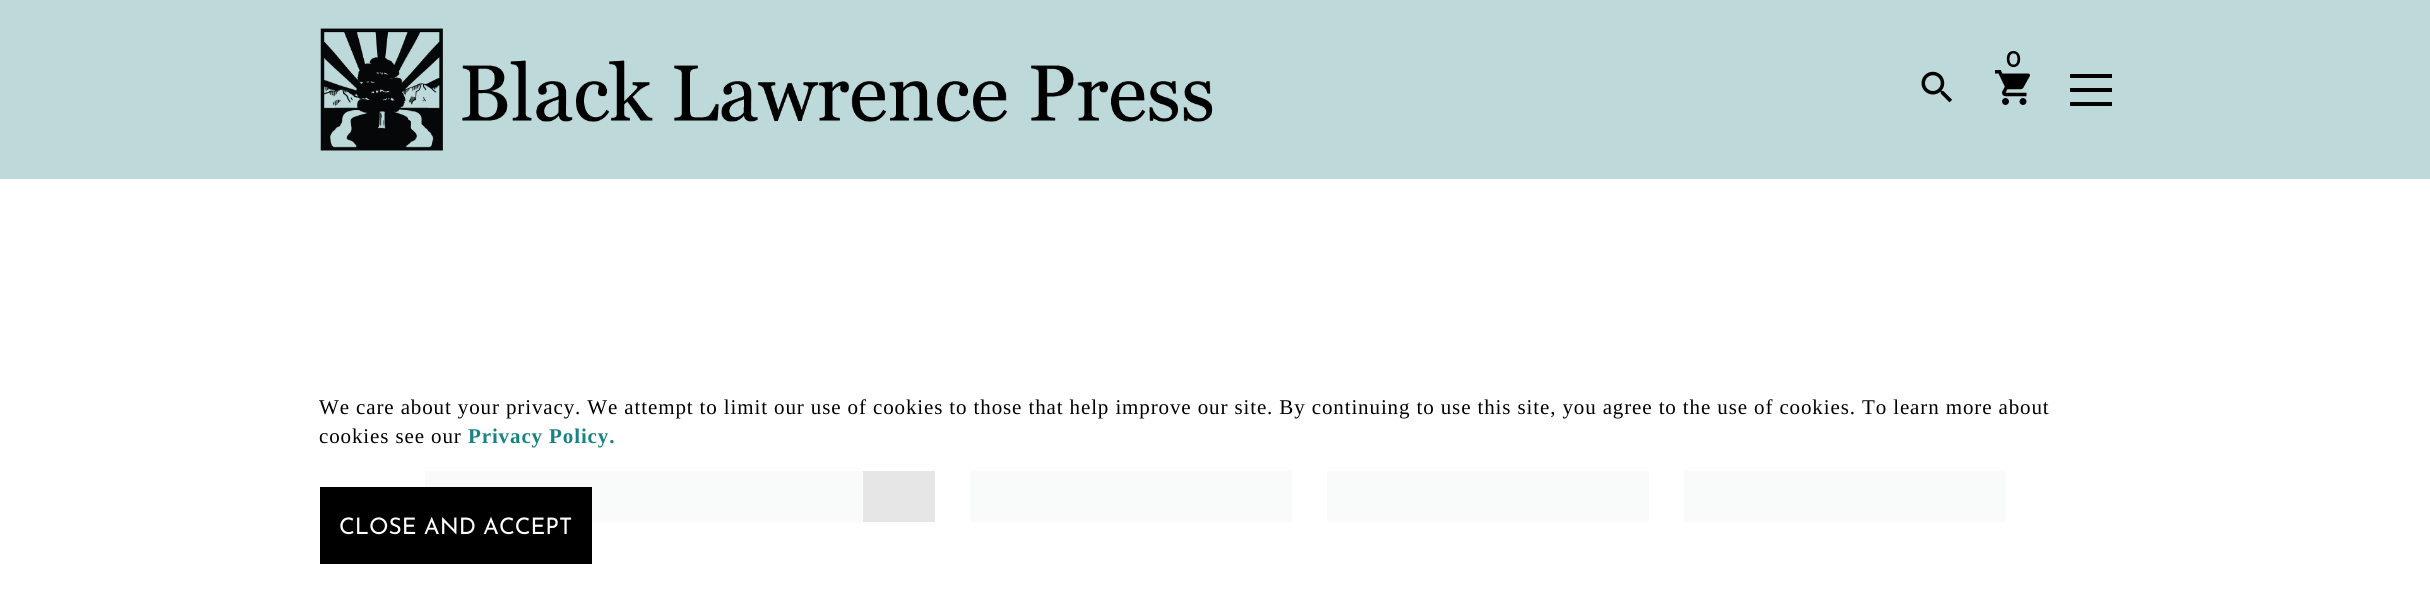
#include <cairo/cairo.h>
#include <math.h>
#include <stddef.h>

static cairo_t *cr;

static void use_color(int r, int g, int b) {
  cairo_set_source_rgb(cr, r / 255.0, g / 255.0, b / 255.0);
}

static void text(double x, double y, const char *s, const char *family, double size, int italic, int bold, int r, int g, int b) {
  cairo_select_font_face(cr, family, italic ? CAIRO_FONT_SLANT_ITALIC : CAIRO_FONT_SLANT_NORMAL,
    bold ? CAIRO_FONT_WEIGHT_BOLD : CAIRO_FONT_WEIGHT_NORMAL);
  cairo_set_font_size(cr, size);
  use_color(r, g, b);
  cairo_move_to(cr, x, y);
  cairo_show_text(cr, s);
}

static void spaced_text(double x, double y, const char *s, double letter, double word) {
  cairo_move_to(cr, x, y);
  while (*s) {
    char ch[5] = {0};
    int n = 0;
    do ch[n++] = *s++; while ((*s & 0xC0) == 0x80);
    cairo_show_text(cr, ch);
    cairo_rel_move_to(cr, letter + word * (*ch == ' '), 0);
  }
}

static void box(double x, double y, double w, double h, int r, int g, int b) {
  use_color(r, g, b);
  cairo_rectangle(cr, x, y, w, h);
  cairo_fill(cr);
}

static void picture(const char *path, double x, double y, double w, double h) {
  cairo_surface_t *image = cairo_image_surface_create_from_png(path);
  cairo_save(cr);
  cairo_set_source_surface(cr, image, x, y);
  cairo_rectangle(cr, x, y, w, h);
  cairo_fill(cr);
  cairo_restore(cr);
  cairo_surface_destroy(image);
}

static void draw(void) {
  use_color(255, 255, 255);
  cairo_paint(cr);
  box(0, 0, 2430, 179, 189, 217, 217);
  picture("img_01.png", 320, 28, 893, 123);
  picture("img_02.png", 1995, 70, 35, 35);
  picture("img_03.png", 1921, 71, 31, 32);
  box(2070, 74, 42, 4, 0, 0, 0);
  box(2070, 88, 42, 4, 0, 0, 0);
  box(2070, 102, 42, 4, 0, 0, 0);
  box(425, 471, 438, 51, 189, 217, 217);
  box(863, 471, 72, 51, 0, 0, 0);
  box(970, 471, 322, 51, 189, 217, 217);
  box(1327, 471, 322, 51, 189, 217, 217);
  box(1684, 471, 322, 51, 189, 217, 217);
  cairo_set_source_rgba(cr, 1, 1, 1, 0.9);
  cairo_rectangle(cr, 425, 471, 1581, 51);
  cairo_fill(cr);
  use_color(0, 0, 0);
  cairo_rectangle(cr, 321, 488, 270, 75);
  cairo_fill_preserve(cr);
  cairo_stroke(cr);
  text(2006, 67, "0", "Josefin Sans Medium", 24, 0, 0, 0, 0, 0);
  cairo_select_font_face(cr, "Liberation Serif", CAIRO_FONT_SLANT_NORMAL, CAIRO_FONT_WEIGHT_NORMAL);
  cairo_set_font_size(cr, 21);
  spaced_text(319, 414, "We care about your privacy. We attempt to limit our use of cookies to those that help improve our site. By continuing to use this site, you agree to the use of cookies. To learn more about", 0.88, 0);
  spaced_text(319, 443, "cookies see our", 0.88, 0);
  cairo_select_font_face(cr, "Liberation Serif", CAIRO_FONT_SLANT_NORMAL, CAIRO_FONT_WEIGHT_BOLD);
  use_color(24, 131, 131);
  spaced_text(468, 443, "Privacy Policy.", 0.88, 0);
  text(339, 534, "CLOSE AND ACCEPT", "Josefin Sans", 22.75, 0, 0, 255, 255, 255);
}

int main(void) {
  cairo_surface_t *surface = cairo_image_surface_create(CAIRO_FORMAT_RGB24, 2430, 602);
  cr = cairo_create(surface);
  cairo_font_options_t *options = cairo_font_options_create();
  cairo_font_options_set_hint_metrics(options, CAIRO_HINT_METRICS_OFF);
  cairo_font_options_set_hint_style(options, CAIRO_HINT_STYLE_NONE);
  cairo_set_font_options(cr, options);
  cairo_set_miter_limit(cr, 4);
  draw();
  cairo_surface_write_to_png(surface, "out.png");
  cairo_font_options_destroy(options);
  cairo_destroy(cr);
  cairo_surface_destroy(surface);
  return 0;
}
